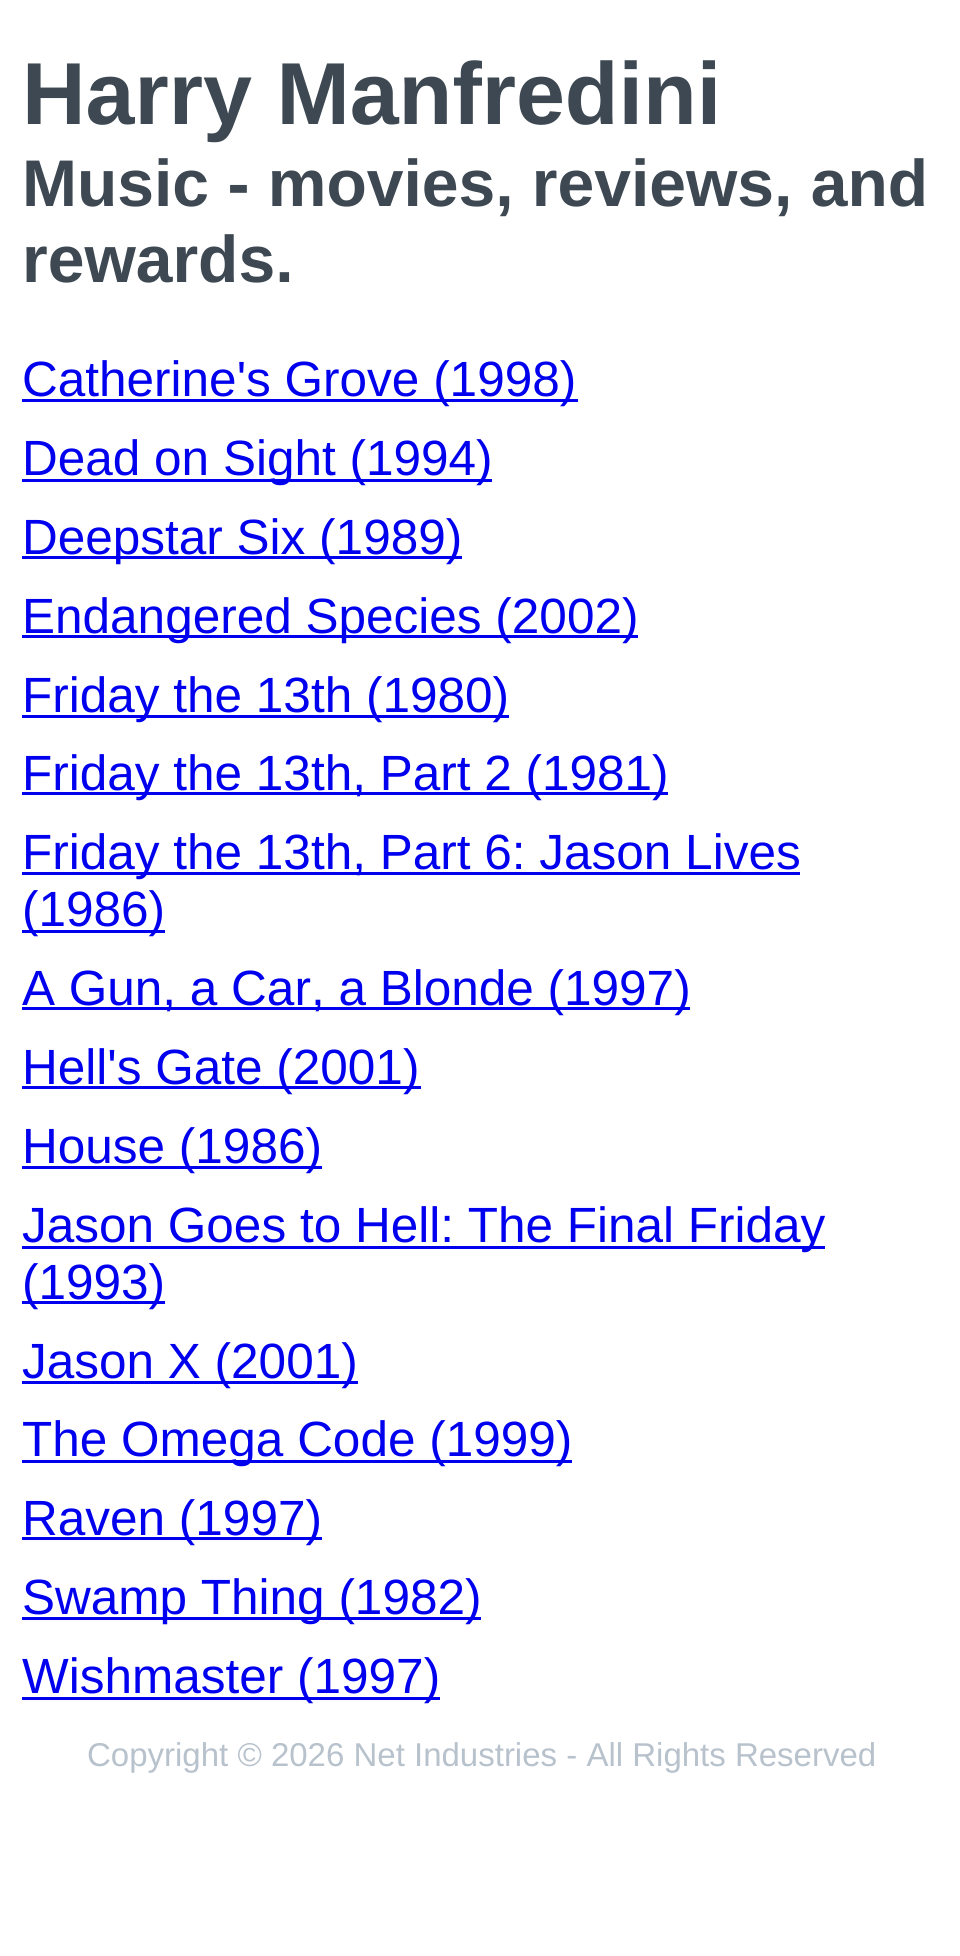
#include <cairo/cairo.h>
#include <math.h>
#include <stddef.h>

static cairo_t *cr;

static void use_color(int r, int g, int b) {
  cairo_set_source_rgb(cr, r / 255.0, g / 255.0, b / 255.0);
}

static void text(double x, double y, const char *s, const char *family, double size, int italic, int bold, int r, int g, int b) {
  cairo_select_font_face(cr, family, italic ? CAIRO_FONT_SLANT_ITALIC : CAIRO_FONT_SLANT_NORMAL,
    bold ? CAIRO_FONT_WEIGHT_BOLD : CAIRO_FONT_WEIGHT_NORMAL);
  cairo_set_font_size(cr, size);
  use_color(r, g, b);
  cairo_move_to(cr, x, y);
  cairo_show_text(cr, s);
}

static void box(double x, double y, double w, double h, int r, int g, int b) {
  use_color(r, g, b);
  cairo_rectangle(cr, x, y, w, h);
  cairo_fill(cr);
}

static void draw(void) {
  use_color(255, 255, 255);
  cairo_paint(cr);
  box(22, 399, 556, 3, 0, 0, 238);
  box(22, 479, 470, 3, 0, 0, 238);
  box(22, 556, 440, 3, 0, 0, 238);
  box(22, 635, 616, 3, 0, 0, 238);
  box(22, 715, 487, 3, 0, 0, 238);
  box(22, 792, 646, 3, 0, 0, 238);
  box(22, 872, 778, 3, 0, 0, 238);
  box(22, 930, 143, 3, 0, 0, 238);
  box(22, 1007, 668, 3, 0, 0, 238);
  box(22, 1086, 399, 3, 0, 0, 238);
  box(22, 1166, 300, 3, 0, 0, 238);
  box(22, 1246, 803, 3, 0, 0, 238);
  box(22, 1301, 143, 3, 0, 0, 238);
  box(22, 1381, 336, 3, 0, 0, 238);
  box(22, 1460, 550, 3, 0, 0, 238);
  box(22, 1537, 300, 3, 0, 0, 238);
  box(22, 1617, 459, 3, 0, 0, 238);
  box(22, 1697, 418, 3, 0, 0, 238);
  text(22, 124, "Harry Manfredini", "Liberation Sans", 88, 0, 1, 61, 72, 82);
  text(22, 206, "Music - movies, reviews, and", "Liberation Sans", 66, 0, 1, 61, 72, 82);
  text(22, 282, "rewards.", "Liberation Sans", 66, 0, 1, 61, 72, 82);
  text(22, 396, "Catherine's Grove (1998)", "Liberation Sans", 49.5, 0, 0, 0, 0, 238);
  text(22, 475, "Dead on Sight (1994)", "Liberation Sans", 49.5, 0, 0, 0, 0, 238);
  text(22, 554, "Deepstar Six (1989)", "Liberation Sans", 49.5, 0, 0, 0, 0, 238);
  text(22, 633, "Endangered Species (2002)", "Liberation Sans", 49.5, 0, 0, 0, 0, 238);
  text(22, 712, "Friday the 13th (1980)", "Liberation Sans", 49.5, 0, 0, 0, 0, 238);
  text(22, 790, "Friday the 13th, Part 2 (1981)", "Liberation Sans", 49.5, 0, 0, 0, 0, 238);
  text(22, 869, "Friday the 13th, Part 6: Jason Lives", "Liberation Sans", 49.5, 0, 0, 0, 0, 238);
  text(22, 926, "(1986)", "Liberation Sans", 49.5, 0, 0, 0, 0, 238);
  text(22, 1005, "A Gun, a Car, a Blonde (1997)", "Liberation Sans", 49.5, 0, 0, 0, 0, 238);
  text(22, 1084, "Hell's Gate (2001)", "Liberation Sans", 49.5, 0, 0, 0, 0, 238);
  text(22, 1163, "House (1986)", "Liberation Sans", 49.5, 0, 0, 0, 0, 238);
  text(22, 1242, "Jason Goes to Hell: The Final Friday", "Liberation Sans", 49.5, 0, 0, 0, 0, 238);
  text(22, 1299, "(1993)", "Liberation Sans", 49.5, 0, 0, 0, 0, 238);
  text(22, 1378, "Jason X (2001)", "Liberation Sans", 49.5, 0, 0, 0, 0, 238);
  text(22, 1456, "The Omega Code (1999)", "Liberation Sans", 49.5, 0, 0, 0, 0, 238);
  text(22, 1535, "Raven (1997)", "Liberation Sans", 49.5, 0, 0, 0, 0, 238);
  text(22, 1614, "Swamp Thing (1982)", "Liberation Sans", 49.5, 0, 0, 0, 0, 238);
  text(22, 1693, "Wishmaster (1997)", "Liberation Sans", 49.5, 0, 0, 0, 0, 238);
  text(87, 1766, "Copyright © 2026 Net Industries - All Rights Reserved", "Liberation Sans", 33, 0, 0, 184, 194, 204);
}

int main(void) {
  cairo_surface_t *surface = cairo_image_surface_create(CAIRO_FORMAT_RGB24, 960, 1956);
  cr = cairo_create(surface);
  cairo_font_options_t *options = cairo_font_options_create();
  cairo_font_options_set_hint_metrics(options, CAIRO_HINT_METRICS_OFF);
  cairo_font_options_set_hint_style(options, CAIRO_HINT_STYLE_NONE);
  cairo_set_font_options(cr, options);
  cairo_set_miter_limit(cr, 4);
  draw();
  cairo_surface_write_to_png(surface, "out.png");
  cairo_font_options_destroy(options);
  cairo_destroy(cr);
  cairo_surface_destroy(surface);
  return 0;
}
